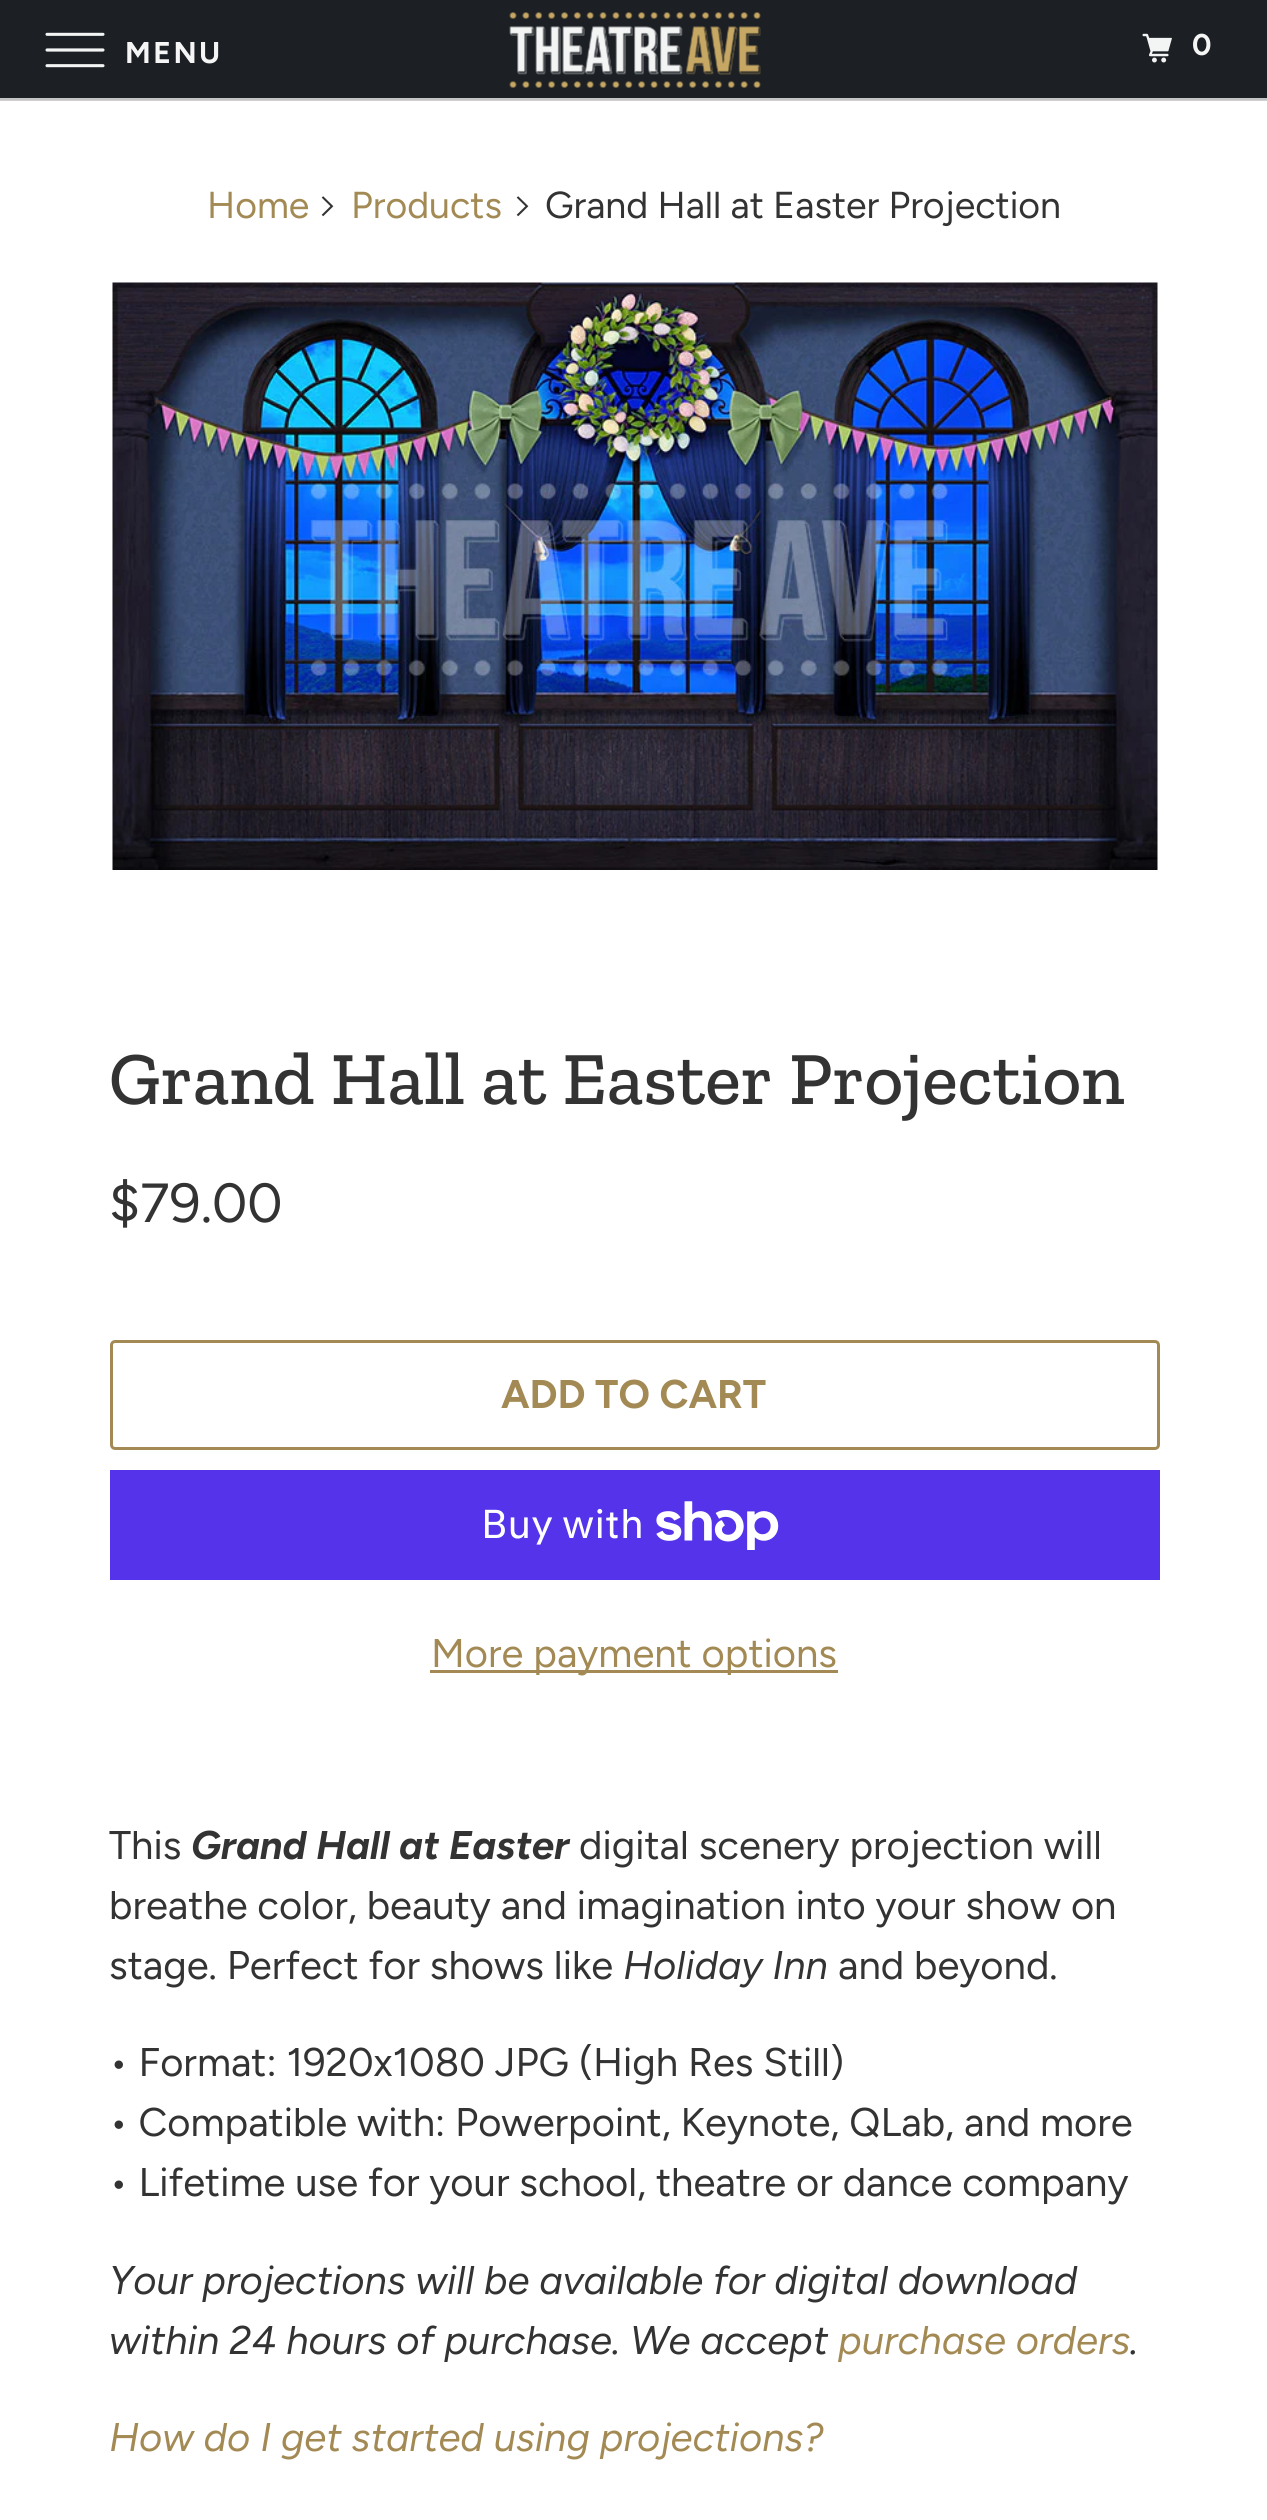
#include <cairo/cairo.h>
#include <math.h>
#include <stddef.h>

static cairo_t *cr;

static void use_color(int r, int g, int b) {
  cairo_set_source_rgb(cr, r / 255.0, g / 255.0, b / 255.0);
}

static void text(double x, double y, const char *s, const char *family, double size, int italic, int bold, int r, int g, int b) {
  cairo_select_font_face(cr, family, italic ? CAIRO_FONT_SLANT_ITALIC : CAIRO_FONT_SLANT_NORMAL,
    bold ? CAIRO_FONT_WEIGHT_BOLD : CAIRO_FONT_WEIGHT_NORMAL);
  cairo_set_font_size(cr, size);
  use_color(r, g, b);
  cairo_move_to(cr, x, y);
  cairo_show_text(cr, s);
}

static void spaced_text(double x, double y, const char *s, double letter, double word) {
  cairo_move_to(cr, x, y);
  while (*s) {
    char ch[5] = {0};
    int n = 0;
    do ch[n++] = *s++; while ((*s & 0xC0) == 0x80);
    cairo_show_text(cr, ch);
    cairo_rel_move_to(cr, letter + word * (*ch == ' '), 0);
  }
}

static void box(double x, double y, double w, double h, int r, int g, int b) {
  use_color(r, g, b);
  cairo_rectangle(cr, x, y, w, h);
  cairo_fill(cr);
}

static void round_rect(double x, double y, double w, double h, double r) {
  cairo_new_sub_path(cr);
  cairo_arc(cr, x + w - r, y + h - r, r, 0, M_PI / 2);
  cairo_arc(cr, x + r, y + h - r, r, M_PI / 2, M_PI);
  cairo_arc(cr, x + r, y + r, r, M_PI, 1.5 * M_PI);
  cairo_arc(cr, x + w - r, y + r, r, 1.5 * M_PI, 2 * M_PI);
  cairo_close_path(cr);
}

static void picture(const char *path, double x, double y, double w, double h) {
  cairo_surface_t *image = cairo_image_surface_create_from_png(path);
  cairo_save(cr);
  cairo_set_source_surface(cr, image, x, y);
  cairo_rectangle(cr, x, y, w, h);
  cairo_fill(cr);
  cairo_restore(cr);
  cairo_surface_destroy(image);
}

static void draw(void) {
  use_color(255, 255, 255);
  cairo_paint(cr);
  box(0, 0, 1267, 98, 28, 32, 36);
  box(0, 98, 1267, 2, 196, 196, 197);
  picture("img_01.png", 45, 32, 60, 36);
  picture("img_02.png", 509, 12, 252, 76);
  picture("img_03.png", 1142, 33, 30, 30);
  box(0, 100, 1267, 1, 208, 208, 208);
  picture("img_04.png", 321, 196, 13, 21);
  picture("img_04.png", 516, 196, 13, 21);
  picture("img_05.png", 112, 282, 1046, 588);
  round_rect(111.5, 1341.5, 1047, 107, 3.5);
  use_color(163, 138, 84);
  cairo_set_line_width(cr, 3);
  cairo_stroke(cr);
  box(110, 1470, 1050, 110, 84, 51, 235);
  picture("img_06.png", 656, 1501, 123, 49);
  box(430, 1670, 408, 3, 163, 138, 84);
  cairo_select_font_face(cr, "Figtree", CAIRO_FONT_SLANT_NORMAL, CAIRO_FONT_WEIGHT_BOLD);
  cairo_set_font_size(cr, 30);
  use_color(245, 245, 245);
  spaced_text(125, 63, "MENU", 2.5, 0);
  spaced_text(1192, 55, "0", 2.5, 0);
  text(207, 218, "Home", "Figtree", 37.5, 0, 0, 163, 138, 84);
  text(351, 218, "Products", "Figtree", 37.5, 0, 0, 163, 138, 84);
  text(545, 218, "Grand Hall at Easter Projection", "Figtree", 37.5, 0, 0, 51, 51, 51);
  text(109, 1104, "Grand Hall at Easter Projection", "Zilla Slab Medium", 75, 0, 0, 51, 51, 51);
  text(109, 1222, "$79.00", "Figtree", 55, 0, 0, 51, 51, 51);
  text(501, 1408, "ADD TO CART", "Figtree", 40, 0, 1, 163, 138, 84);
  text(481, 1538, "Buy with", "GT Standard", 40, 0, 0, 255, 255, 255);
  text(431, 1667, "More payment options", "Figtree", 40, 0, 0, 163, 138, 84);
  text(109, 1859, "This", "Figtree", 40, 0, 0, 51, 51, 51);
  text(191, 1859, "Grand Hall at Easter", "Figtree", 40, 1, 1, 51, 51, 51);
  text(579, 1859, "digital scenery projection will", "Figtree", 40, 0, 0, 51, 51, 51);
  text(109, 1919, "breathe color, beauty and imagination into your show on", "Figtree", 40, 0, 0, 51, 51, 51);
  text(109, 1979, "stage. Perfect for shows like", "Figtree", 40, 0, 0, 51, 51, 51);
  text(623, 1979, "Holiday Inn", "Figtree", 40, 1, 0, 51, 51, 51);
  text(838, 1979, "and beyond.", "Figtree", 40, 0, 0, 51, 51, 51);
  text(109, 2076, "• Format: 1920x1080 JPG (High Res Still)", "Figtree", 40, 0, 0, 51, 51, 51);
  text(109, 2136, "• Compatible with: Powerpoint, Keynote, QLab, and more", "Figtree", 40, 0, 0, 51, 51, 51);
  text(109, 2196, "• Lifetime use for your school, theatre or dance company", "Figtree", 40, 0, 0, 51, 51, 51);
  text(109, 2294, "Your projections will be available for digital download", "Figtree", 40, 1, 0, 51, 51, 51);
  text(109, 2354, "within 24 hours of purchase. We accept", "Figtree", 40, 1, 0, 51, 51, 51);
  text(838, 2354, "purchase orders", "Figtree", 40, 1, 0, 163, 138, 84);
  text(1130, 2354, ".", "Figtree", 40, 1, 0, 51, 51, 51);
  text(109, 2451, "How do I get started using projections?", "Figtree", 40, 1, 0, 163, 138, 84);
}

int main(void) {
  cairo_surface_t *surface = cairo_image_surface_create(CAIRO_FORMAT_RGB24, 1267, 2520);
  cr = cairo_create(surface);
  cairo_font_options_t *options = cairo_font_options_create();
  cairo_font_options_set_hint_metrics(options, CAIRO_HINT_METRICS_OFF);
  cairo_font_options_set_hint_style(options, CAIRO_HINT_STYLE_NONE);
  cairo_set_font_options(cr, options);
  cairo_set_miter_limit(cr, 4);
  draw();
  cairo_surface_write_to_png(surface, "out.png");
  cairo_font_options_destroy(options);
  cairo_destroy(cr);
  cairo_surface_destroy(surface);
  return 0;
}
